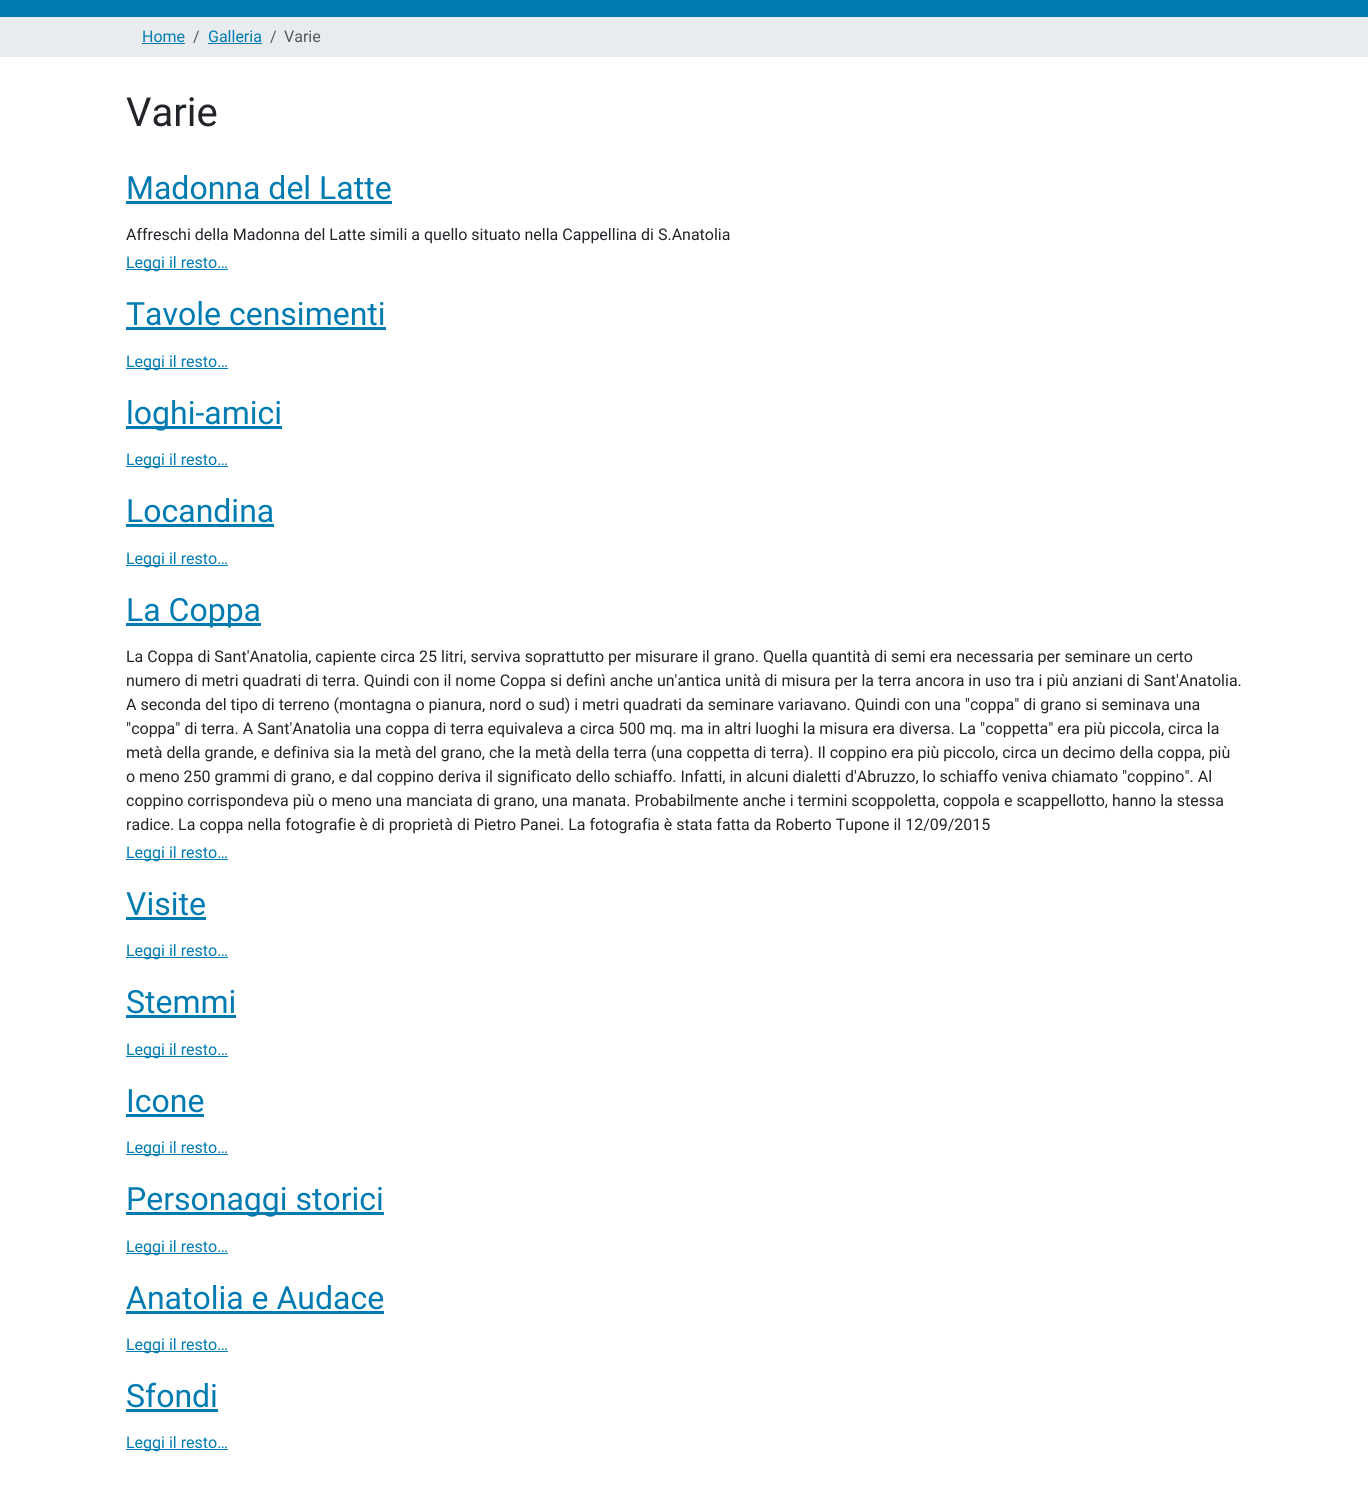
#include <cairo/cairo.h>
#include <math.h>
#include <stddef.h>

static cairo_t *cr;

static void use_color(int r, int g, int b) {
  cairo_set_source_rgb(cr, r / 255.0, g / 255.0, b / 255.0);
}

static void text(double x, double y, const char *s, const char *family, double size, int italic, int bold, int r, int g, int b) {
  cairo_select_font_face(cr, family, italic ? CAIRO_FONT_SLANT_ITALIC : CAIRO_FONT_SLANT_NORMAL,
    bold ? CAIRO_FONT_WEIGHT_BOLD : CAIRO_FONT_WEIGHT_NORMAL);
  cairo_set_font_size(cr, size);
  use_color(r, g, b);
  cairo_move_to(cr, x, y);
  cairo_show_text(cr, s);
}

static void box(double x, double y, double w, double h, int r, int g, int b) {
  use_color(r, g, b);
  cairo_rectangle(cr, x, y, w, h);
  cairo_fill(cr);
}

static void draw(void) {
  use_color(255, 255, 255);
  cairo_paint(cr);
  box(0, 0, 1368, 17, 0, 123, 177);
  box(0, 17, 1368, 40, 233, 236, 239);
  box(142, 43, 43, 1, 0, 123, 177);
  box(208, 43, 54, 1, 0, 123, 177);
  box(126, 201, 266, 3, 0, 123, 177);
  box(126, 269, 102, 1, 0, 123, 177);
  box(126, 327, 260, 3, 0, 123, 177);
  box(126, 368, 102, 1, 0, 123, 177);
  box(126, 426, 156, 3, 0, 123, 177);
  box(126, 466, 102, 1, 0, 123, 177);
  box(126, 524, 148, 3, 0, 123, 177);
  box(126, 565, 102, 1, 0, 123, 177);
  box(126, 623, 135, 3, 0, 123, 177);
  box(126, 859, 102, 1, 0, 123, 177);
  box(126, 917, 80, 3, 0, 123, 177);
  box(126, 957, 102, 1, 0, 123, 177);
  box(126, 1015, 110, 3, 0, 123, 177);
  box(126, 1056, 102, 1, 0, 123, 177);
  box(126, 1114, 78, 3, 0, 123, 177);
  box(126, 1154, 102, 1, 0, 123, 177);
  box(126, 1212, 258, 3, 0, 123, 177);
  box(126, 1253, 102, 1, 0, 123, 177);
  box(126, 1311, 258, 3, 0, 123, 177);
  box(126, 1351, 102, 1, 0, 123, 177);
  box(126, 1409, 92, 3, 0, 123, 177);
  box(126, 1449, 102, 1, 0, 123, 177);
  text(142, 42, "Home", "Roboto", 16, 0, 0, 0, 123, 177);
  text(193, 42, "/", "Roboto", 16, 0, 0, 83, 87, 91);
  text(208, 42, "Galleria", "Roboto", 16, 0, 0, 0, 123, 177);
  text(270, 42, "/", "Roboto", 16, 0, 0, 83, 87, 91);
  text(284, 42, "Varie", "Roboto", 16, 0, 0, 83, 87, 91);
  text(126, 126, "Varie", "Roboto", 40, 0, 0, 33, 37, 41);
  text(126, 199, "Madonna del Latte", "Roboto", 32, 0, 0, 0, 123, 177);
  text(126, 240, "Affreschi della Madonna del Latte simili a quello situato nella Cappellina di S.Anatolia", "Roboto", 16, 0, 0, 33, 37, 41);
  text(126, 268, "Leggi il resto…", "Roboto", 16, 0, 0, 0, 123, 177);
  text(126, 325, "Tavole censimenti", "Roboto", 32, 0, 0, 0, 123, 177);
  text(126, 367, "Leggi il resto…", "Roboto", 16, 0, 0, 0, 123, 177);
  text(126, 424, "loghi-amici", "Roboto", 32, 0, 0, 0, 123, 177);
  text(126, 465, "Leggi il resto…", "Roboto", 16, 0, 0, 0, 123, 177);
  text(126, 522, "Locandina", "Roboto", 32, 0, 0, 0, 123, 177);
  text(126, 564, "Leggi il resto…", "Roboto", 16, 0, 0, 0, 123, 177);
  text(126, 621, "La Coppa", "Roboto", 32, 0, 0, 0, 123, 177);
  text(126, 662, "La Coppa di Sant'Anatolia, capiente circa 25 litri, serviva soprattutto per misurare il grano. Quella quantità di semi era necessaria per seminare un certo", "Roboto", 16, 0, 0, 33, 37, 41);
  text(126, 686, "numero di metri quadrati di terra. Quindi con il nome Coppa si definì anche un'antica unità di misura per la terra ancora in uso tra i più anziani di Sant'Anatolia.", "Roboto", 16, 0, 0, 33, 37, 41);
  text(126, 710, "A seconda del tipo di terreno (montagna o pianura, nord o sud) i metri quadrati da seminare variavano. Quindi con una \"coppa\" di grano si seminava una", "Roboto", 16, 0, 0, 33, 37, 41);
  text(126, 734, "\"coppa\" di terra. A Sant'Anatolia una coppa di terra equivaleva a circa 500 mq. ma in altri luoghi la misura era diversa. La \"coppetta\" era più piccola, circa la", "Roboto", 16, 0, 0, 33, 37, 41);
  text(126, 758, "metà della grande, e definiva sia la metà del grano, che la metà della terra (una coppetta di terra). Il coppino era più piccolo, circa un decimo della coppa, più", "Roboto", 16, 0, 0, 33, 37, 41);
  text(126, 782, "o meno 250 grammi di grano, e dal coppino deriva il significato dello schiaffo. Infatti, in alcuni dialetti d'Abruzzo, lo schiaffo veniva chiamato \"coppino\". Al", "Roboto", 16, 0, 0, 33, 37, 41);
  text(126, 806, "coppino corrispondeva più o meno una manciata di grano, una manata. Probabilmente anche i termini scoppoletta, coppola e scappellotto, hanno la stessa", "Roboto", 16, 0, 0, 33, 37, 41);
  text(126, 830, "radice. La coppa nella fotografie è di proprietà di Pietro Panei. La fotografia è stata fatta da Roberto Tupone il 12/09/2015", "Roboto", 16, 0, 0, 33, 37, 41);
  text(126, 858, "Leggi il resto…", "Roboto", 16, 0, 0, 0, 123, 177);
  text(126, 915, "Visite", "Roboto", 32, 0, 0, 0, 123, 177);
  text(126, 956, "Leggi il resto…", "Roboto", 16, 0, 0, 0, 123, 177);
  text(126, 1013, "Stemmi", "Roboto", 32, 0, 0, 0, 123, 177);
  text(126, 1055, "Leggi il resto…", "Roboto", 16, 0, 0, 0, 123, 177);
  text(126, 1112, "Icone", "Roboto", 32, 0, 0, 0, 123, 177);
  text(126, 1153, "Leggi il resto…", "Roboto", 16, 0, 0, 0, 123, 177);
  text(126, 1210, "Personaggi storici", "Roboto", 32, 0, 0, 0, 123, 177);
  text(126, 1252, "Leggi il resto…", "Roboto", 16, 0, 0, 0, 123, 177);
  text(126, 1309, "Anatolia e Audace", "Roboto", 32, 0, 0, 0, 123, 177);
  text(126, 1350, "Leggi il resto…", "Roboto", 16, 0, 0, 0, 123, 177);
  text(126, 1407, "Sfondi", "Roboto", 32, 0, 0, 0, 123, 177);
  text(126, 1448, "Leggi il resto…", "Roboto", 16, 0, 0, 0, 123, 177);
}

int main(void) {
  cairo_surface_t *surface = cairo_image_surface_create(CAIRO_FORMAT_RGB24, 1368, 1487);
  cr = cairo_create(surface);
  cairo_font_options_t *options = cairo_font_options_create();
  cairo_font_options_set_hint_metrics(options, CAIRO_HINT_METRICS_OFF);
  cairo_font_options_set_hint_style(options, CAIRO_HINT_STYLE_NONE);
  cairo_set_font_options(cr, options);
  cairo_set_miter_limit(cr, 4);
  draw();
  cairo_surface_write_to_png(surface, "out.png");
  cairo_font_options_destroy(options);
  cairo_destroy(cr);
  cairo_surface_destroy(surface);
  return 0;
}
